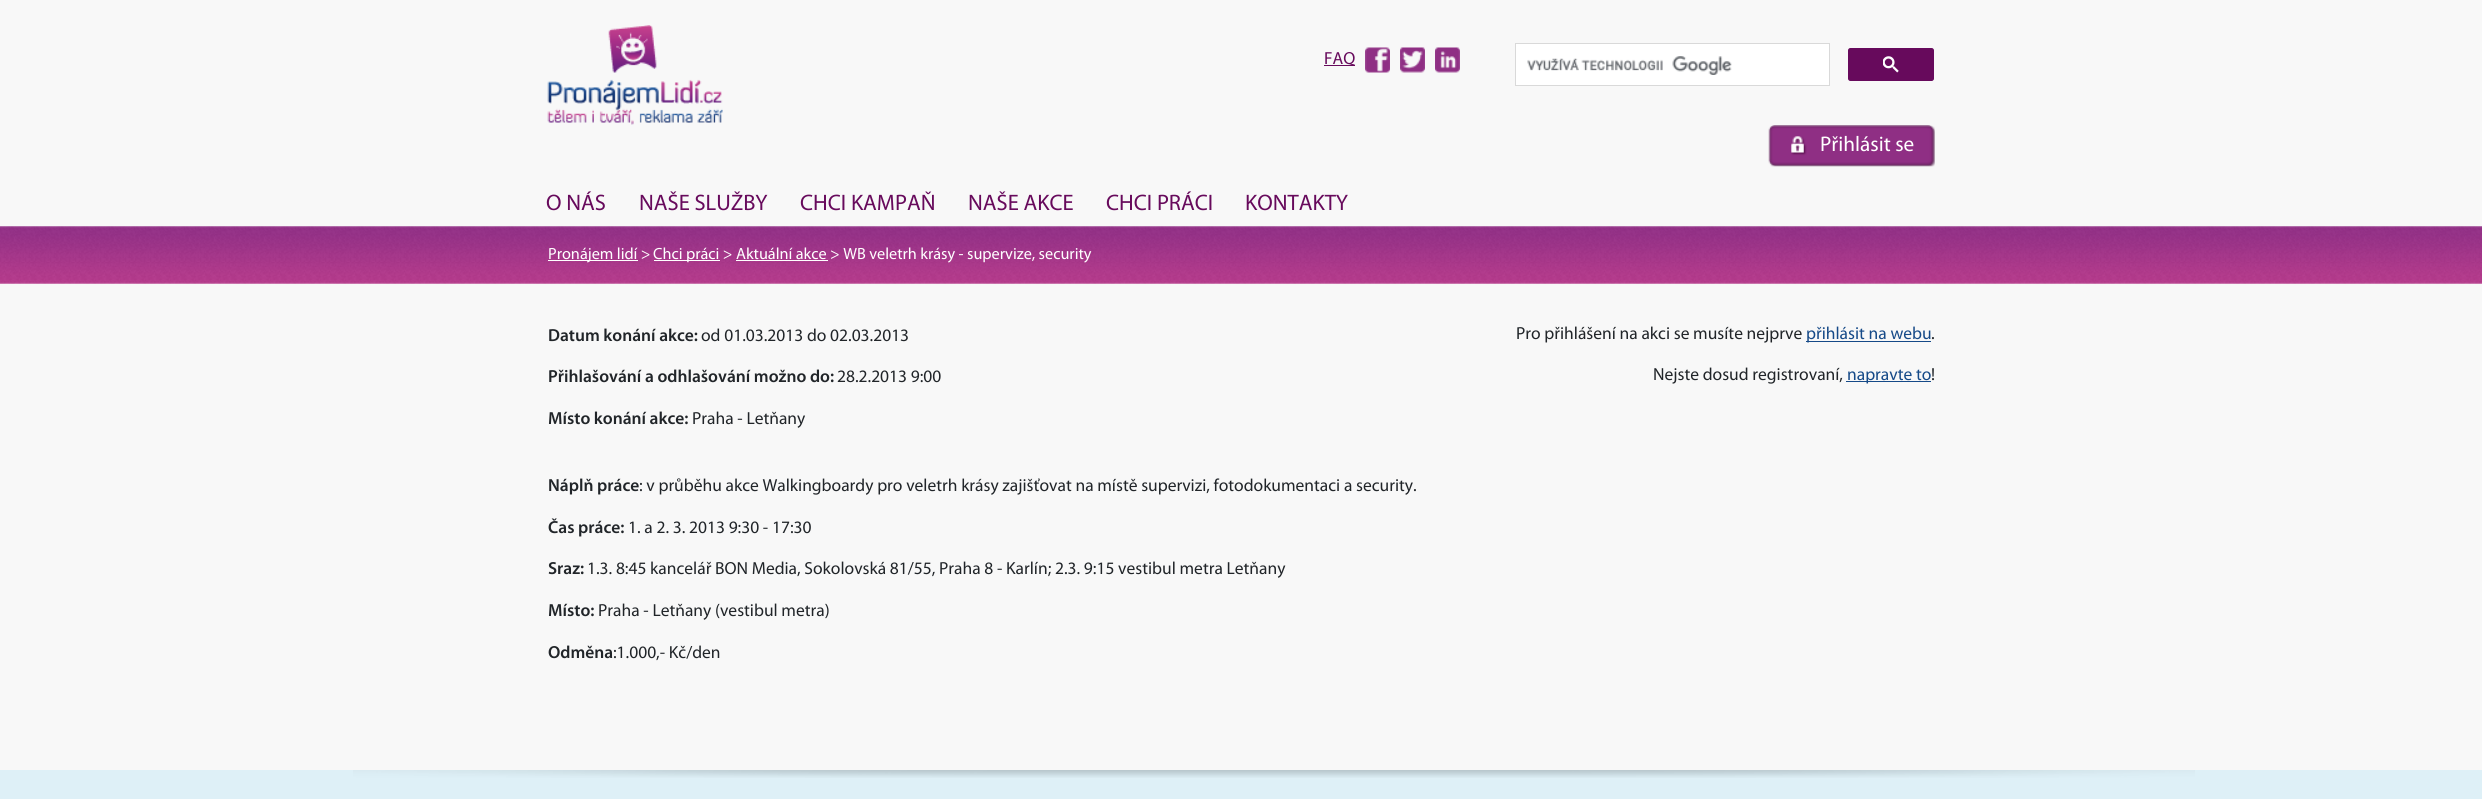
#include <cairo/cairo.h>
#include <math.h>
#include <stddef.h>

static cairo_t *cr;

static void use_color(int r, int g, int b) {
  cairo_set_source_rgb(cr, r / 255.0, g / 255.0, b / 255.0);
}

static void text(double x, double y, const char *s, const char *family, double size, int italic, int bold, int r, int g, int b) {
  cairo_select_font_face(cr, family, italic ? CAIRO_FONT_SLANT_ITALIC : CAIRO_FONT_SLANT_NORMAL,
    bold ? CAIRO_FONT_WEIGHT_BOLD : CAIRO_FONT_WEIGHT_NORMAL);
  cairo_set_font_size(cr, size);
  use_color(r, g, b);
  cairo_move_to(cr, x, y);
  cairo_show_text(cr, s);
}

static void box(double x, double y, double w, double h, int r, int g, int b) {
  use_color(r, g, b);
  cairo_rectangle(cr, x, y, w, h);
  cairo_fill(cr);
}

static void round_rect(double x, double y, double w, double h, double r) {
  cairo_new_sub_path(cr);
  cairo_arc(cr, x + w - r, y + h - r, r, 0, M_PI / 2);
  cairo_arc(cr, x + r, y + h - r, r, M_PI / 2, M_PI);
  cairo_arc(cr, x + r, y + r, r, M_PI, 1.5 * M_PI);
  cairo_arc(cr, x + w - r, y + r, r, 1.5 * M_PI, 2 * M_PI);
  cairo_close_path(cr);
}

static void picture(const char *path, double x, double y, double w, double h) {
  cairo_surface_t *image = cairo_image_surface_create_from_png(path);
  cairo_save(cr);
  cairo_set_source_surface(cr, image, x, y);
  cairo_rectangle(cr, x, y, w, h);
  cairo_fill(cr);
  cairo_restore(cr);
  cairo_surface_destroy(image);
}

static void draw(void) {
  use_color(248, 248, 248);
  cairo_paint(cr);
  picture("img_01.png", 547, 25, 176, 100);
  box(1324, 65, 31, 1, 103, 10, 92);
  picture("img_02.png", 1365, 47, 25, 26);
  picture("img_03.png", 1400, 47, 25, 26);
  picture("img_04.png", 1435, 47, 25, 26);
  use_color(255, 255, 255);
  cairo_rectangle(cr, 1515.5, 43.5, 314, 42);
  cairo_fill_preserve(cr);
  use_color(217, 217, 217);
  cairo_set_line_width(cr, 1);
  cairo_stroke(cr);
  picture("img_05.png", 1527, 56, 205, 19);
  use_color(103, 10, 92);
  round_rect(1848.5, 48.5, 85, 32, 2);
  cairo_fill_preserve(cr);
  use_color(103, 10, 93);
  cairo_stroke(cr);
  picture("img_06.png", 1883, 56, 16, 17);
  picture("img_07.png", 1768, 125, 167, 42);
  picture("img_08.png", 0, 226, 2482, 58);
  box(548, 260, 90, 1, 255, 255, 255);
  box(654, 260, 66, 1, 255, 255, 255);
  box(736, 260, 92, 1, 255, 255, 255);
  box(1806, 341, 125, 1, 22, 74, 136);
  box(1846, 381, 85, 1, 22, 74, 136);
  box(0, 770, 2482, 29, 222, 240, 247);
  picture("img_09.png", 353, 770, 1842, 8);
  text(1324, 64, "FAQ", "Myriad", 17.5, 0, 0, 103, 10, 92);
  text(1820, 151, "Přihlásit se", "Myriad", 21.25, 0, 0, 255, 255, 255);
  text(546, 210, "O NÁS", "Myriad", 22.5, 0, 0, 103, 10, 92);
  text(639, 210, "NAŠE SLUŽBY", "Myriad", 22.5, 0, 0, 103, 10, 92);
  text(800, 210, "CHCI KAMPAŇ", "Myriad", 22.5, 0, 0, 103, 10, 92);
  text(968, 210, "NAŠE AKCE", "Myriad", 22.5, 0, 0, 103, 10, 92);
  text(1106, 210, "CHCI PRÁCI", "Myriad", 22.5, 0, 0, 103, 10, 92);
  text(1245, 210, "KONTAKTY", "Myriad", 22.5, 0, 0, 103, 10, 92);
  text(548, 259, "Pronájem lidí >", "Myriad", 16.25, 0, 0, 255, 255, 255);
  text(653, 259, "Chci práci > Aktuální akce > WB veletrh krásy - supervize, security", "Myriad", 16.25, 0, 0, 255, 255, 255);
  text(548, 341, "Datum konání akce:", "Myriad SemiBold", 17.5, 0, 0, 33, 37, 41);
  text(701, 341, "od 01.03.2013 do 02.03.2013", "Myriad", 17.5, 0, 0, 33, 37, 41);
  text(548, 382, "Přihlašování a odhlašování možno do:", "Myriad SemiBold", 17.5, 0, 0, 33, 37, 41);
  text(837, 382, "28.2.2013 9:00", "Myriad", 17.5, 0, 0, 33, 37, 41);
  text(548, 424, "Místo konání akce:", "Myriad SemiBold", 17.5, 0, 0, 33, 37, 41);
  text(692, 424, "Praha - Letňany", "Myriad", 17.5, 0, 0, 33, 37, 41);
  text(1516, 339, "Pro přihlášení na akci se musíte nejprve", "Myriad", 17.5, 0, 0, 33, 37, 41);
  text(1806, 339, "přihlásit na webu", "Myriad", 17.5, 0, 0, 22, 74, 136);
  text(1931, 339, ".", "Myriad", 17.5, 0, 0, 33, 37, 41);
  text(1653, 380, "Nejste dosud registrovaní,", "Myriad", 17.5, 0, 0, 33, 37, 41);
  text(1847, 380, "napravte to", "Myriad", 17.5, 0, 0, 22, 74, 136);
  text(1931, 380, "!", "Myriad", 17.5, 0, 0, 33, 37, 41);
  text(548, 491, "Náplň práce", "Myriad SemiBold", 17.5, 0, 0, 33, 37, 41);
  text(639, 491, ": v průběhu akce Walkingboardy pro veletrh krásy zajišťovat na místě supervizi, fotodokumentaci a security.", "Myriad", 17.5, 0, 0, 33, 37, 41);
  text(548, 533, "Čas práce:", "Myriad SemiBold", 17.5, 0, 0, 33, 37, 41);
  text(628, 533, "1. a 2. 3. 2013 9:30 - 17:30", "Myriad", 17.5, 0, 0, 33, 37, 41);
  text(548, 574, "Sraz:", "Myriad SemiBold", 17.5, 0, 0, 33, 37, 41);
  text(587, 574, "1.3. 8:45 kancelář BON Media, Sokolovská 81/55, Praha 8 - Karlín; 2.3. 9:15 vestibul metra Letňany", "Myriad", 17.5, 0, 0, 33, 37, 41);
  text(548, 616, "Místo:", "Myriad SemiBold", 17.5, 0, 0, 33, 37, 41);
  text(598, 616, "Praha - Letňany (vestibul metra)", "Myriad", 17.5, 0, 0, 33, 37, 41);
  text(548, 658, "Odměna", "Myriad SemiBold", 17.5, 0, 0, 33, 37, 41);
  text(613, 658, ":1.000,- Kč/den", "Myriad", 17.5, 0, 0, 33, 37, 41);
}

int main(void) {
  cairo_surface_t *surface = cairo_image_surface_create(CAIRO_FORMAT_RGB24, 2482, 799);
  cr = cairo_create(surface);
  cairo_font_options_t *options = cairo_font_options_create();
  cairo_font_options_set_hint_metrics(options, CAIRO_HINT_METRICS_OFF);
  cairo_font_options_set_hint_style(options, CAIRO_HINT_STYLE_NONE);
  cairo_set_font_options(cr, options);
  cairo_set_miter_limit(cr, 4);
  draw();
  cairo_surface_write_to_png(surface, "out.png");
  cairo_font_options_destroy(options);
  cairo_destroy(cr);
  cairo_surface_destroy(surface);
  return 0;
}
